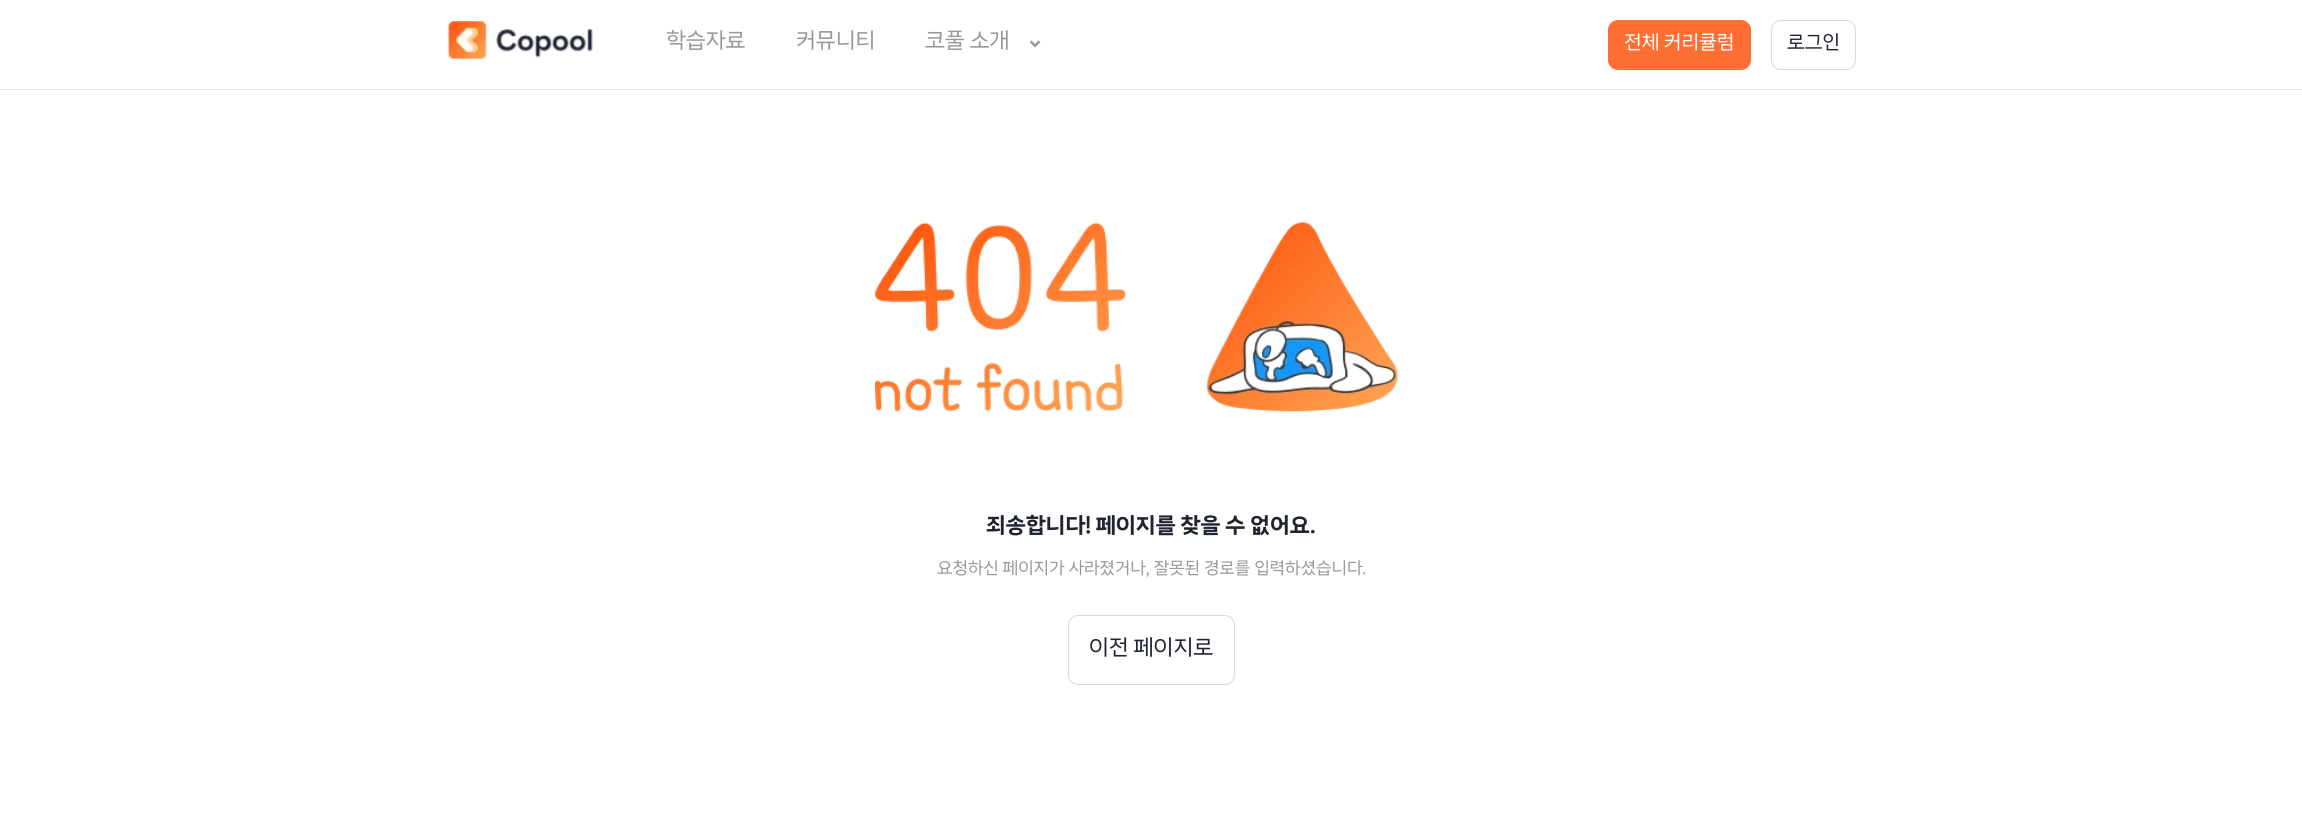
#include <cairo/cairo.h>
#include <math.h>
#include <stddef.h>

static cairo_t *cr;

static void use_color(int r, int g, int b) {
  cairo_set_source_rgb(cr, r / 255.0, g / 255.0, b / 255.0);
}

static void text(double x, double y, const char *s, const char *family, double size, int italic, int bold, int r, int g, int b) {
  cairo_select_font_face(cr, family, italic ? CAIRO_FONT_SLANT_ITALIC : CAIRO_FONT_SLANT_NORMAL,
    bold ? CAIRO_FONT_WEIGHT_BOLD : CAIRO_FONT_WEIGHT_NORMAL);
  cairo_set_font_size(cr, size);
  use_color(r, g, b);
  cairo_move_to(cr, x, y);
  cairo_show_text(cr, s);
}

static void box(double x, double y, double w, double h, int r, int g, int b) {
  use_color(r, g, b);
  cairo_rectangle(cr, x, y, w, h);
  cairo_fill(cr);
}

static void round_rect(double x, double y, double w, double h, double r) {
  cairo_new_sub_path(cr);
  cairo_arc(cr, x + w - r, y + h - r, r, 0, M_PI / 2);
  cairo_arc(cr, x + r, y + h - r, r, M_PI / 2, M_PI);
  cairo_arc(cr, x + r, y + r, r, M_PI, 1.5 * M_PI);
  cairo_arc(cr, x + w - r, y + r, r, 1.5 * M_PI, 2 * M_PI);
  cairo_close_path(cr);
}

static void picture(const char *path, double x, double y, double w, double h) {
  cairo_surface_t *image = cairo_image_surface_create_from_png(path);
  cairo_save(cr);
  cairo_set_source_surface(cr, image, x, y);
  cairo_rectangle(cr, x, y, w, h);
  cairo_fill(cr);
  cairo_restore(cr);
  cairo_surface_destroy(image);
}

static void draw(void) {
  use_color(255, 255, 255);
  cairo_paint(cr);
  box(0, 89, 2302, 1, 231, 233, 235);
  picture("img_01.png", 448, 21, 145, 38);
  picture("img_02.png", 1029, 40, 12, 8);
  use_color(255, 110, 51);
  round_rect(1608.5, 20.5, 142, 49, 9.5);
  cairo_fill_preserve(cr);
  cairo_set_line_width(cr, 1);
  cairo_stroke(cr);
  round_rect(1771.5, 20.5, 84, 49, 9.5);
  use_color(215, 217, 219);
  cairo_stroke(cr);
  picture("img_03.png", 875, 222, 252, 190);
  picture("img_04.png", 1206, 222, 192, 190);
  round_rect(1068.5, 615.5, 166, 69, 9.5);
  cairo_stroke(cr);
  text(666, 48, "학습자료", "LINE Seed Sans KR", 22.5, 0, 0, 152, 153, 154);
  text(796, 48, "커뮤니티", "LINE Seed Sans KR", 22.5, 0, 0, 152, 153, 154);
  text(925, 48, "코풀 소개", "LINE Seed Sans KR", 22.5, 0, 0, 152, 153, 154);
  text(1624, 49, "전체 커리큘럼", "LINE Seed Sans KR", 20, 0, 0, 255, 255, 255);
  text(1787, 49, "로그인", "LINE Seed Sans KR", 20, 0, 0, 32, 35, 48);
  text(986, 533, "죄송합니다! 페이지를 찾을 수 없어요.", "LINE Seed Sans KR", 22.5, 0, 1, 32, 35, 48);
  text(937, 574, "요청하신 페이지가 사라졌거나, 잘못된 경로를 입력하셨습니다.", "LINE Seed Sans KR", 17.5, 0, 0, 152, 153, 154);
  text(1089, 655, "이전 페이지로", "LINE Seed Sans KR", 22.5, 0, 0, 32, 35, 48);
}

int main(void) {
  cairo_surface_t *surface = cairo_image_surface_create(CAIRO_FORMAT_RGB24, 2302, 817);
  cr = cairo_create(surface);
  cairo_font_options_t *options = cairo_font_options_create();
  cairo_font_options_set_hint_metrics(options, CAIRO_HINT_METRICS_OFF);
  cairo_font_options_set_hint_style(options, CAIRO_HINT_STYLE_NONE);
  cairo_set_font_options(cr, options);
  cairo_set_miter_limit(cr, 4);
  draw();
  cairo_surface_write_to_png(surface, "out.png");
  cairo_font_options_destroy(options);
  cairo_destroy(cr);
  cairo_surface_destroy(surface);
  return 0;
}
